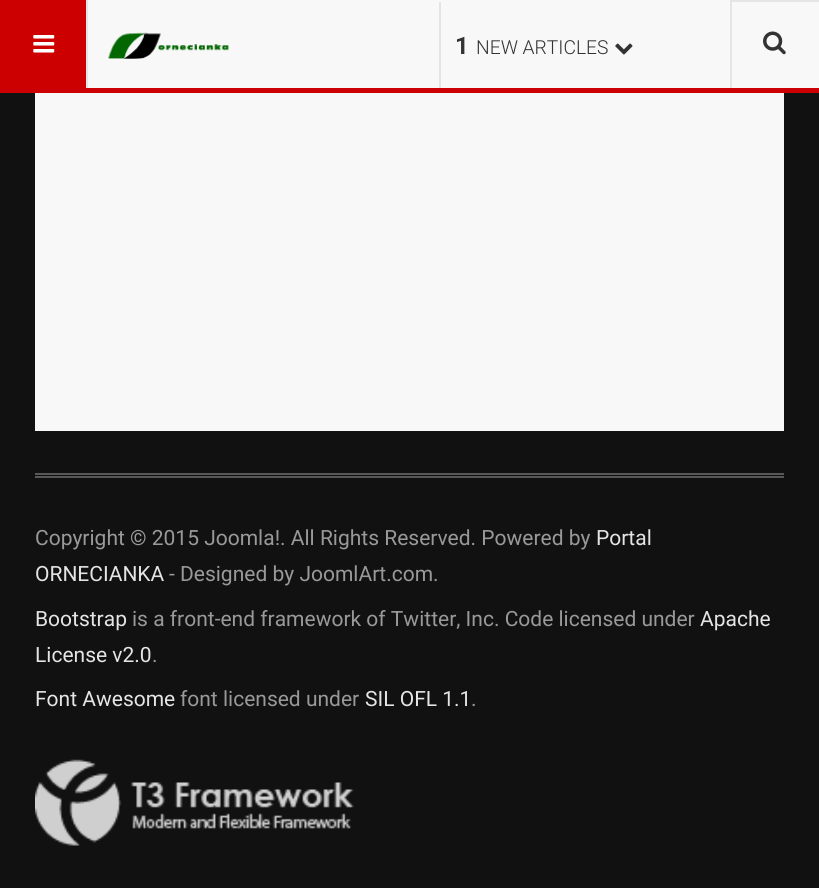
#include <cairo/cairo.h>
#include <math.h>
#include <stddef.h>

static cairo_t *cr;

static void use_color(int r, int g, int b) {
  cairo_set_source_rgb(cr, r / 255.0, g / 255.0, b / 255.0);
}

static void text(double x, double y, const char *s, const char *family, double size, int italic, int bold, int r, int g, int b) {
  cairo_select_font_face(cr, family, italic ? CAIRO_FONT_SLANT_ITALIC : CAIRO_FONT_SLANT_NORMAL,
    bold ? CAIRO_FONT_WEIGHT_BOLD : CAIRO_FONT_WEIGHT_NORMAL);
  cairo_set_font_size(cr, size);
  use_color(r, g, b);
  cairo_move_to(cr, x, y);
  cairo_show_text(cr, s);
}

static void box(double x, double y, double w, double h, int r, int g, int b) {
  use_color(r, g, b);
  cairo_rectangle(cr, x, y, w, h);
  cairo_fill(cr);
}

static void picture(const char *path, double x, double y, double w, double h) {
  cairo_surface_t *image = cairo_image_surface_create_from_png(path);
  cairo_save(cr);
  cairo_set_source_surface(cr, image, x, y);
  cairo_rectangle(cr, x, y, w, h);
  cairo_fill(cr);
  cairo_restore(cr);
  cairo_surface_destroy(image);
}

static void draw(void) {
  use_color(17, 17, 17);
  cairo_paint(cr);
  box(88, 0, 731, 88, 248, 248, 248);
  box(0, 88, 819, 5, 204, 0, 0);
  box(0, 0, 86, 88, 204, 0, 0);
  box(86, 0, 2, 88, 229, 229, 229);
  picture("img_01.png", 33, 35, 22, 18);
  picture("img_02.png", 108, 32, 121, 27);
  box(439, 2, 2, 86, 229, 229, 229);
  picture("img_03.png", 615, 43, 18, 12);
  box(732, 0, 87, 2, 229, 229, 229);
  box(730, 0, 2, 88, 229, 229, 229);
  picture("img_04.png", 763, 31, 23, 24);
  box(35, 93, 749, 338, 248, 248, 248);
  box(35, 473, 749, 2, 88, 88, 88);
  box(35, 476, 749, 2, 88, 88, 88);
  picture("img_05.png", 35, 759, 319, 87);
  text(455, 54, "1", "Roboto", 24, 0, 1, 51, 51, 51);
  text(476, 54, "NEW ARTICLES", "Roboto Light", 19.25, 0, 0, 51, 51, 51);
  text(35, 545, "Copyright © 2015 Joomla!. All Rights Reserved. Powered by", "Roboto", 21, 0, 0, 153, 153, 153);
  text(596, 545, "Portal", "Roboto", 21, 0, 0, 229, 229, 229);
  text(35, 581, "ORNECIANKA", "Roboto", 21, 0, 0, 229, 229, 229);
  text(169, 581, "- Designed by JoomlArt.com.", "Roboto", 21, 0, 0, 153, 153, 153);
  text(35, 626, "Bootstrap", "Roboto", 21, 0, 0, 229, 229, 229);
  text(132, 626, "is a front-end framework of Twitter, Inc. Code licensed under", "Roboto", 21, 0, 0, 153, 153, 153);
  text(700, 626, "Apache", "Roboto", 21, 0, 0, 229, 229, 229);
  text(35, 662, "License v2.0", "Roboto", 21, 0, 0, 229, 229, 229);
  text(152, 662, ".", "Roboto", 21, 0, 0, 153, 153, 153);
  text(35, 706, "Font Awesome", "Roboto", 21, 0, 0, 229, 229, 229);
  text(180, 706, "font licensed under", "Roboto", 21, 0, 0, 153, 153, 153);
  text(365, 706, "SIL OFL 1.1", "Roboto", 21, 0, 0, 229, 229, 229);
  text(471, 706, ".", "Roboto", 21, 0, 0, 153, 153, 153);
}

int main(void) {
  cairo_surface_t *surface = cairo_image_surface_create(CAIRO_FORMAT_RGB24, 819, 888);
  cr = cairo_create(surface);
  cairo_font_options_t *options = cairo_font_options_create();
  cairo_font_options_set_hint_metrics(options, CAIRO_HINT_METRICS_OFF);
  cairo_font_options_set_hint_style(options, CAIRO_HINT_STYLE_NONE);
  cairo_set_font_options(cr, options);
  cairo_set_miter_limit(cr, 4);
  draw();
  cairo_surface_write_to_png(surface, "out.png");
  cairo_font_options_destroy(options);
  cairo_destroy(cr);
  cairo_surface_destroy(surface);
  return 0;
}
